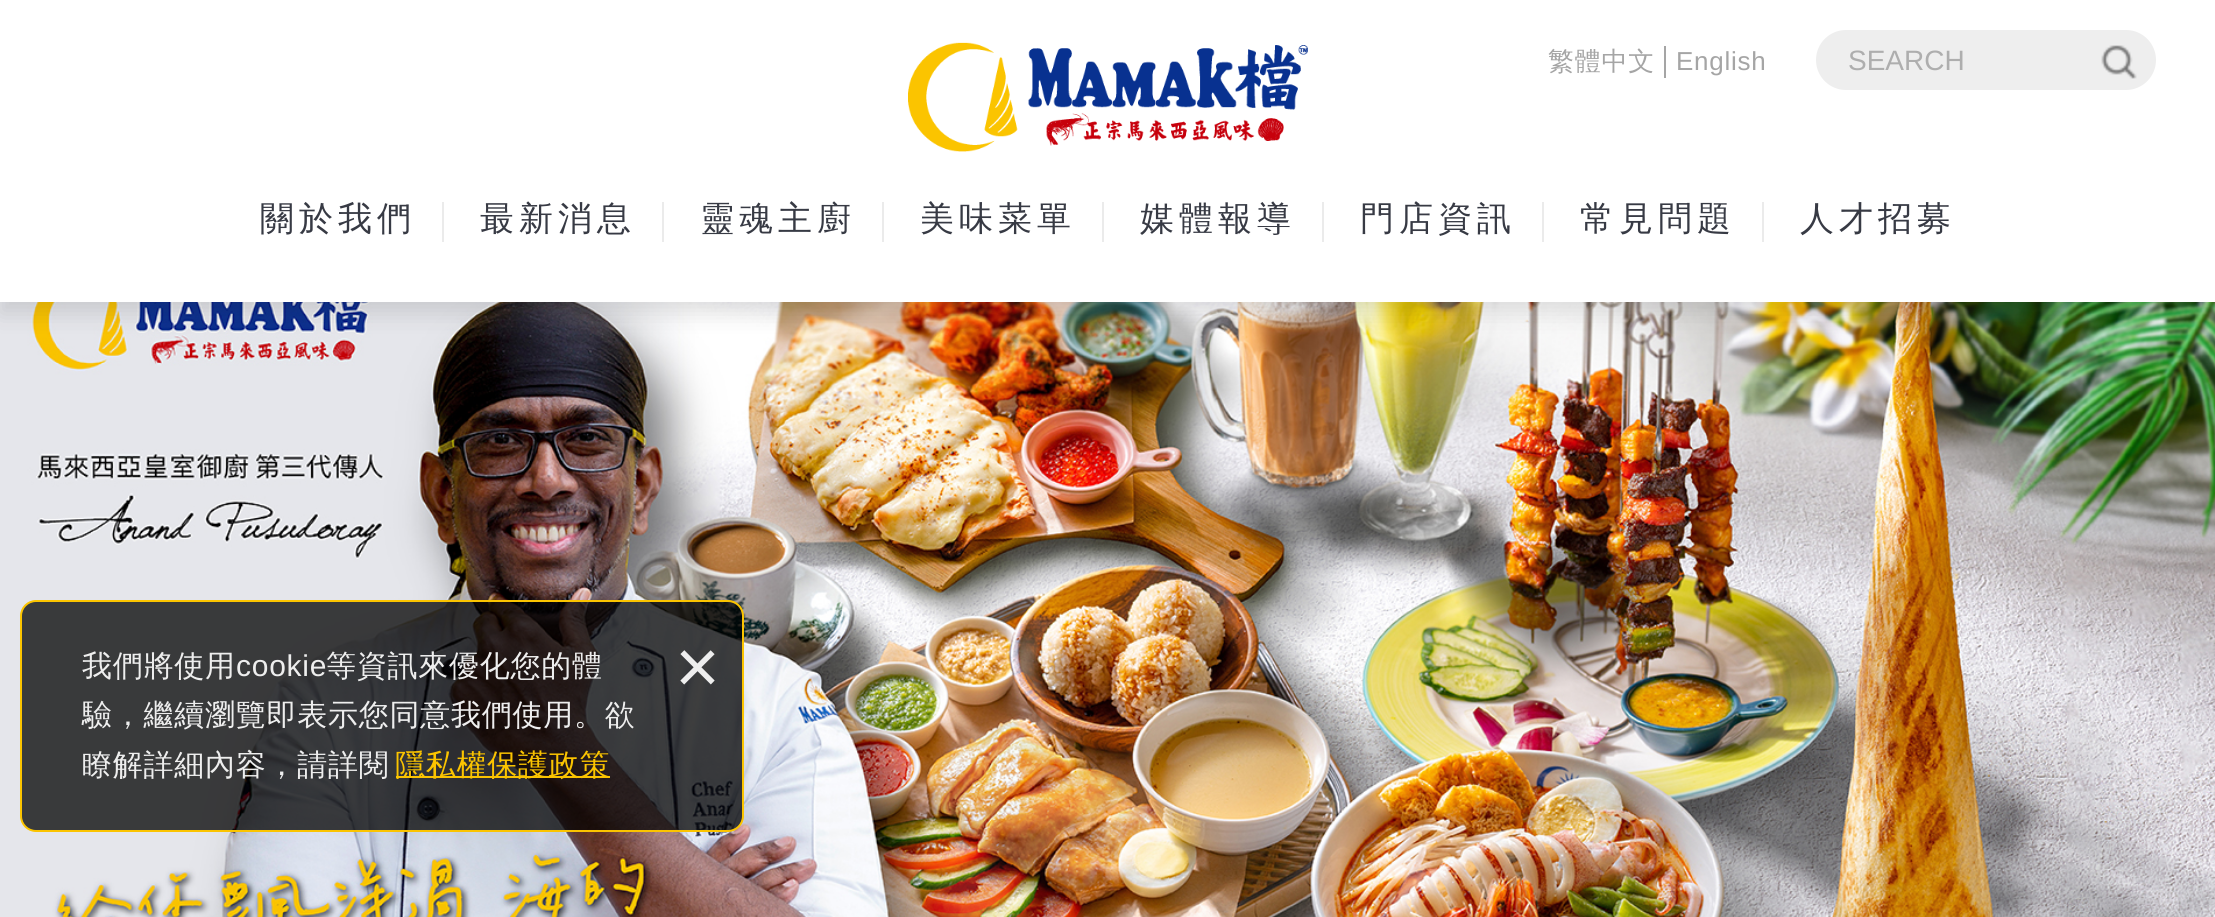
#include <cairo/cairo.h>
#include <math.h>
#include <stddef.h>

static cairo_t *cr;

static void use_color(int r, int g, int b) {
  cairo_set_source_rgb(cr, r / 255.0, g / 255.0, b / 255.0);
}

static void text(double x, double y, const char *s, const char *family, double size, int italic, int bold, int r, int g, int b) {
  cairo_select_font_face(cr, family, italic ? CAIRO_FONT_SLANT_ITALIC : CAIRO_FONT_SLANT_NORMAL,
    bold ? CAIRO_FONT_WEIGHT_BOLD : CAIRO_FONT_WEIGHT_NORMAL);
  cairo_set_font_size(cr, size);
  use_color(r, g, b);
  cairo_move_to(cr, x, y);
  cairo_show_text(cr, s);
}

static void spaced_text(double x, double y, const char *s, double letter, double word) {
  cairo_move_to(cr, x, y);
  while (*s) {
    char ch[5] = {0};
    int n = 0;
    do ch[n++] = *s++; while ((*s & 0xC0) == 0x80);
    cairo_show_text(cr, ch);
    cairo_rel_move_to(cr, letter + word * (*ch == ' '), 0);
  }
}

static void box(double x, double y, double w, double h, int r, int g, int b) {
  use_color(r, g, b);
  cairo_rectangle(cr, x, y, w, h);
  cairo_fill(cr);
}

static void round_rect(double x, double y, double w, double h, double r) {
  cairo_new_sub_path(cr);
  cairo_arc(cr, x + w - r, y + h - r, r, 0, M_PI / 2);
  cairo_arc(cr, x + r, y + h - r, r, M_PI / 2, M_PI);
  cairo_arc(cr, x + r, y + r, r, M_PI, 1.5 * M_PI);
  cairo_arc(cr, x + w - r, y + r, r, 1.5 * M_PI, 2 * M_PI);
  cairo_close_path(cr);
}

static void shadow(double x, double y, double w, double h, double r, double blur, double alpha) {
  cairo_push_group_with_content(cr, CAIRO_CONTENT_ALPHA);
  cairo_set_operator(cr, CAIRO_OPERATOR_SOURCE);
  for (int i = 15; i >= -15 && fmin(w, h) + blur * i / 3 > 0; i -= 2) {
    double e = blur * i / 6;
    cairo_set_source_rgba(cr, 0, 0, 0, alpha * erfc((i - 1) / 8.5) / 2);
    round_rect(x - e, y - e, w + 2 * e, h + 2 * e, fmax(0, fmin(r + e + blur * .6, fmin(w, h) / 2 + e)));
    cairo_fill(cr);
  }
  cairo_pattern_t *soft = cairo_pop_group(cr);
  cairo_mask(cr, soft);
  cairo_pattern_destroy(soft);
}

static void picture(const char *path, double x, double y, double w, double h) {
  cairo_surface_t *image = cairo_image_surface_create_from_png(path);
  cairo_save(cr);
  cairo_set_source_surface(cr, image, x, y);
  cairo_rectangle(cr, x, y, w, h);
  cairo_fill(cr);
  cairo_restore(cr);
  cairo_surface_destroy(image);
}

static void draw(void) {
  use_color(255, 255, 255);
  cairo_paint(cr);
  picture("img_03.png", 0, 302, 2215, 615);
  use_color(32, 31, 31);
  shadow(0, 12, 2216, 302, 0, 11, 0.14);
  box(0, 0, 2215, 302, 255, 255, 255);
  picture("img_01.png", 908, 42, 400, 110);
  box(1664, 46, 2, 32, 165, 165, 165);
  use_color(238, 238, 238);
  round_rect(1817, 31, 338, 58, 29);
  cairo_fill_preserve(cr);
  cairo_stroke(cr);
  picture("img_02.png", 2101, 45, 36, 34);
  box(442, 202, 2, 40, 235, 235, 235);
  box(662, 202, 2, 40, 235, 235, 235);
  box(882, 202, 2, 40, 235, 235, 235);
  box(1102, 202, 2, 40, 235, 235, 235);
  box(1322, 202, 2, 40, 235, 235, 235);
  box(1542, 202, 2, 40, 235, 235, 235);
  box(1762, 202, 2, 40, 235, 235, 235);
  cairo_set_source_rgba(cr, 0, 0, 0, 0.75);
  round_rect(21, 601, 722, 230, 15);
  cairo_fill_preserve(cr);
  use_color(251, 196, 0);
  cairo_stroke(cr);
  box(396, 776, 214, 2, 251, 196, 0);
  cairo_select_font_face(cr, "WenQuanYi Zen Hei Medium", CAIRO_FONT_SLANT_NORMAL, CAIRO_FONT_WEIGHT_NORMAL);
  cairo_set_font_size(cr, 26);
  use_color(165, 165, 165);
  spaced_text(1548, 70, "繁體中文", 0.75, 0);
  cairo_select_font_face(cr, "Liberation Sans", CAIRO_FONT_SLANT_NORMAL, CAIRO_FONT_WEIGHT_NORMAL);
  spaced_text(1676, 70, "English", 0.75, 0);
  text(1848, 70, "SEARCH", "Liberation Sans", 28, 0, 0, 174, 174, 174);
  cairo_select_font_face(cr, "WenQuanYi Zen Hei Medium", CAIRO_FONT_SLANT_NORMAL, CAIRO_FONT_WEIGHT_NORMAL);
  cairo_set_font_size(cr, 34);
  use_color(55, 58, 68);
  spaced_text(260, 230, "關於我們", 5, 0);
  spaced_text(480, 230, "最新消息", 5, 0);
  spaced_text(700, 230, "靈魂主廚", 5, 0);
  spaced_text(920, 230, "美味菜單", 5, 0);
  spaced_text(1140, 230, "媒體報導", 5, 0);
  spaced_text(1360, 230, "門店資訊", 5, 0);
  spaced_text(1580, 230, "常見問題", 5, 0);
  spaced_text(1800, 230, "人才招募", 5, 0);
  cairo_set_font_size(cr, 30);
  use_color(238, 238, 238);
  spaced_text(82, 676, "我們將使用", 0.75, 0);
  cairo_select_font_face(cr, "Liberation Sans", CAIRO_FONT_SLANT_NORMAL, CAIRO_FONT_WEIGHT_NORMAL);
  spaced_text(236, 676, "cookie", 0.75, 0);
  cairo_select_font_face(cr, "WenQuanYi Zen Hei Medium", CAIRO_FONT_SLANT_NORMAL, CAIRO_FONT_WEIGHT_NORMAL);
  spaced_text(326, 676, "等資訊來優化您的體", 0.75, 0);
  spaced_text(82, 725, "驗，繼續瀏覽即表示您同意我們使用。欲", 0.75, 0);
  spaced_text(82, 775, "瞭解詳細內容，請詳閱", 0.75, 0);
  use_color(251, 196, 0);
  spaced_text(395, 775, "隱私權保護政策", 0.75, 0);
  text(675, 693, "×", "Liberation Sans", 77, 0, 0, 238, 238, 238);
}

int main(void) {
  cairo_surface_t *surface = cairo_image_surface_create(CAIRO_FORMAT_RGB24, 2215, 917);
  cr = cairo_create(surface);
  cairo_font_options_t *options = cairo_font_options_create();
  cairo_font_options_set_hint_metrics(options, CAIRO_HINT_METRICS_OFF);
  cairo_font_options_set_hint_style(options, CAIRO_HINT_STYLE_NONE);
  cairo_set_font_options(cr, options);
  cairo_set_miter_limit(cr, 4);
  draw();
  cairo_surface_write_to_png(surface, "out.png");
  cairo_font_options_destroy(options);
  cairo_destroy(cr);
  cairo_surface_destroy(surface);
  return 0;
}
